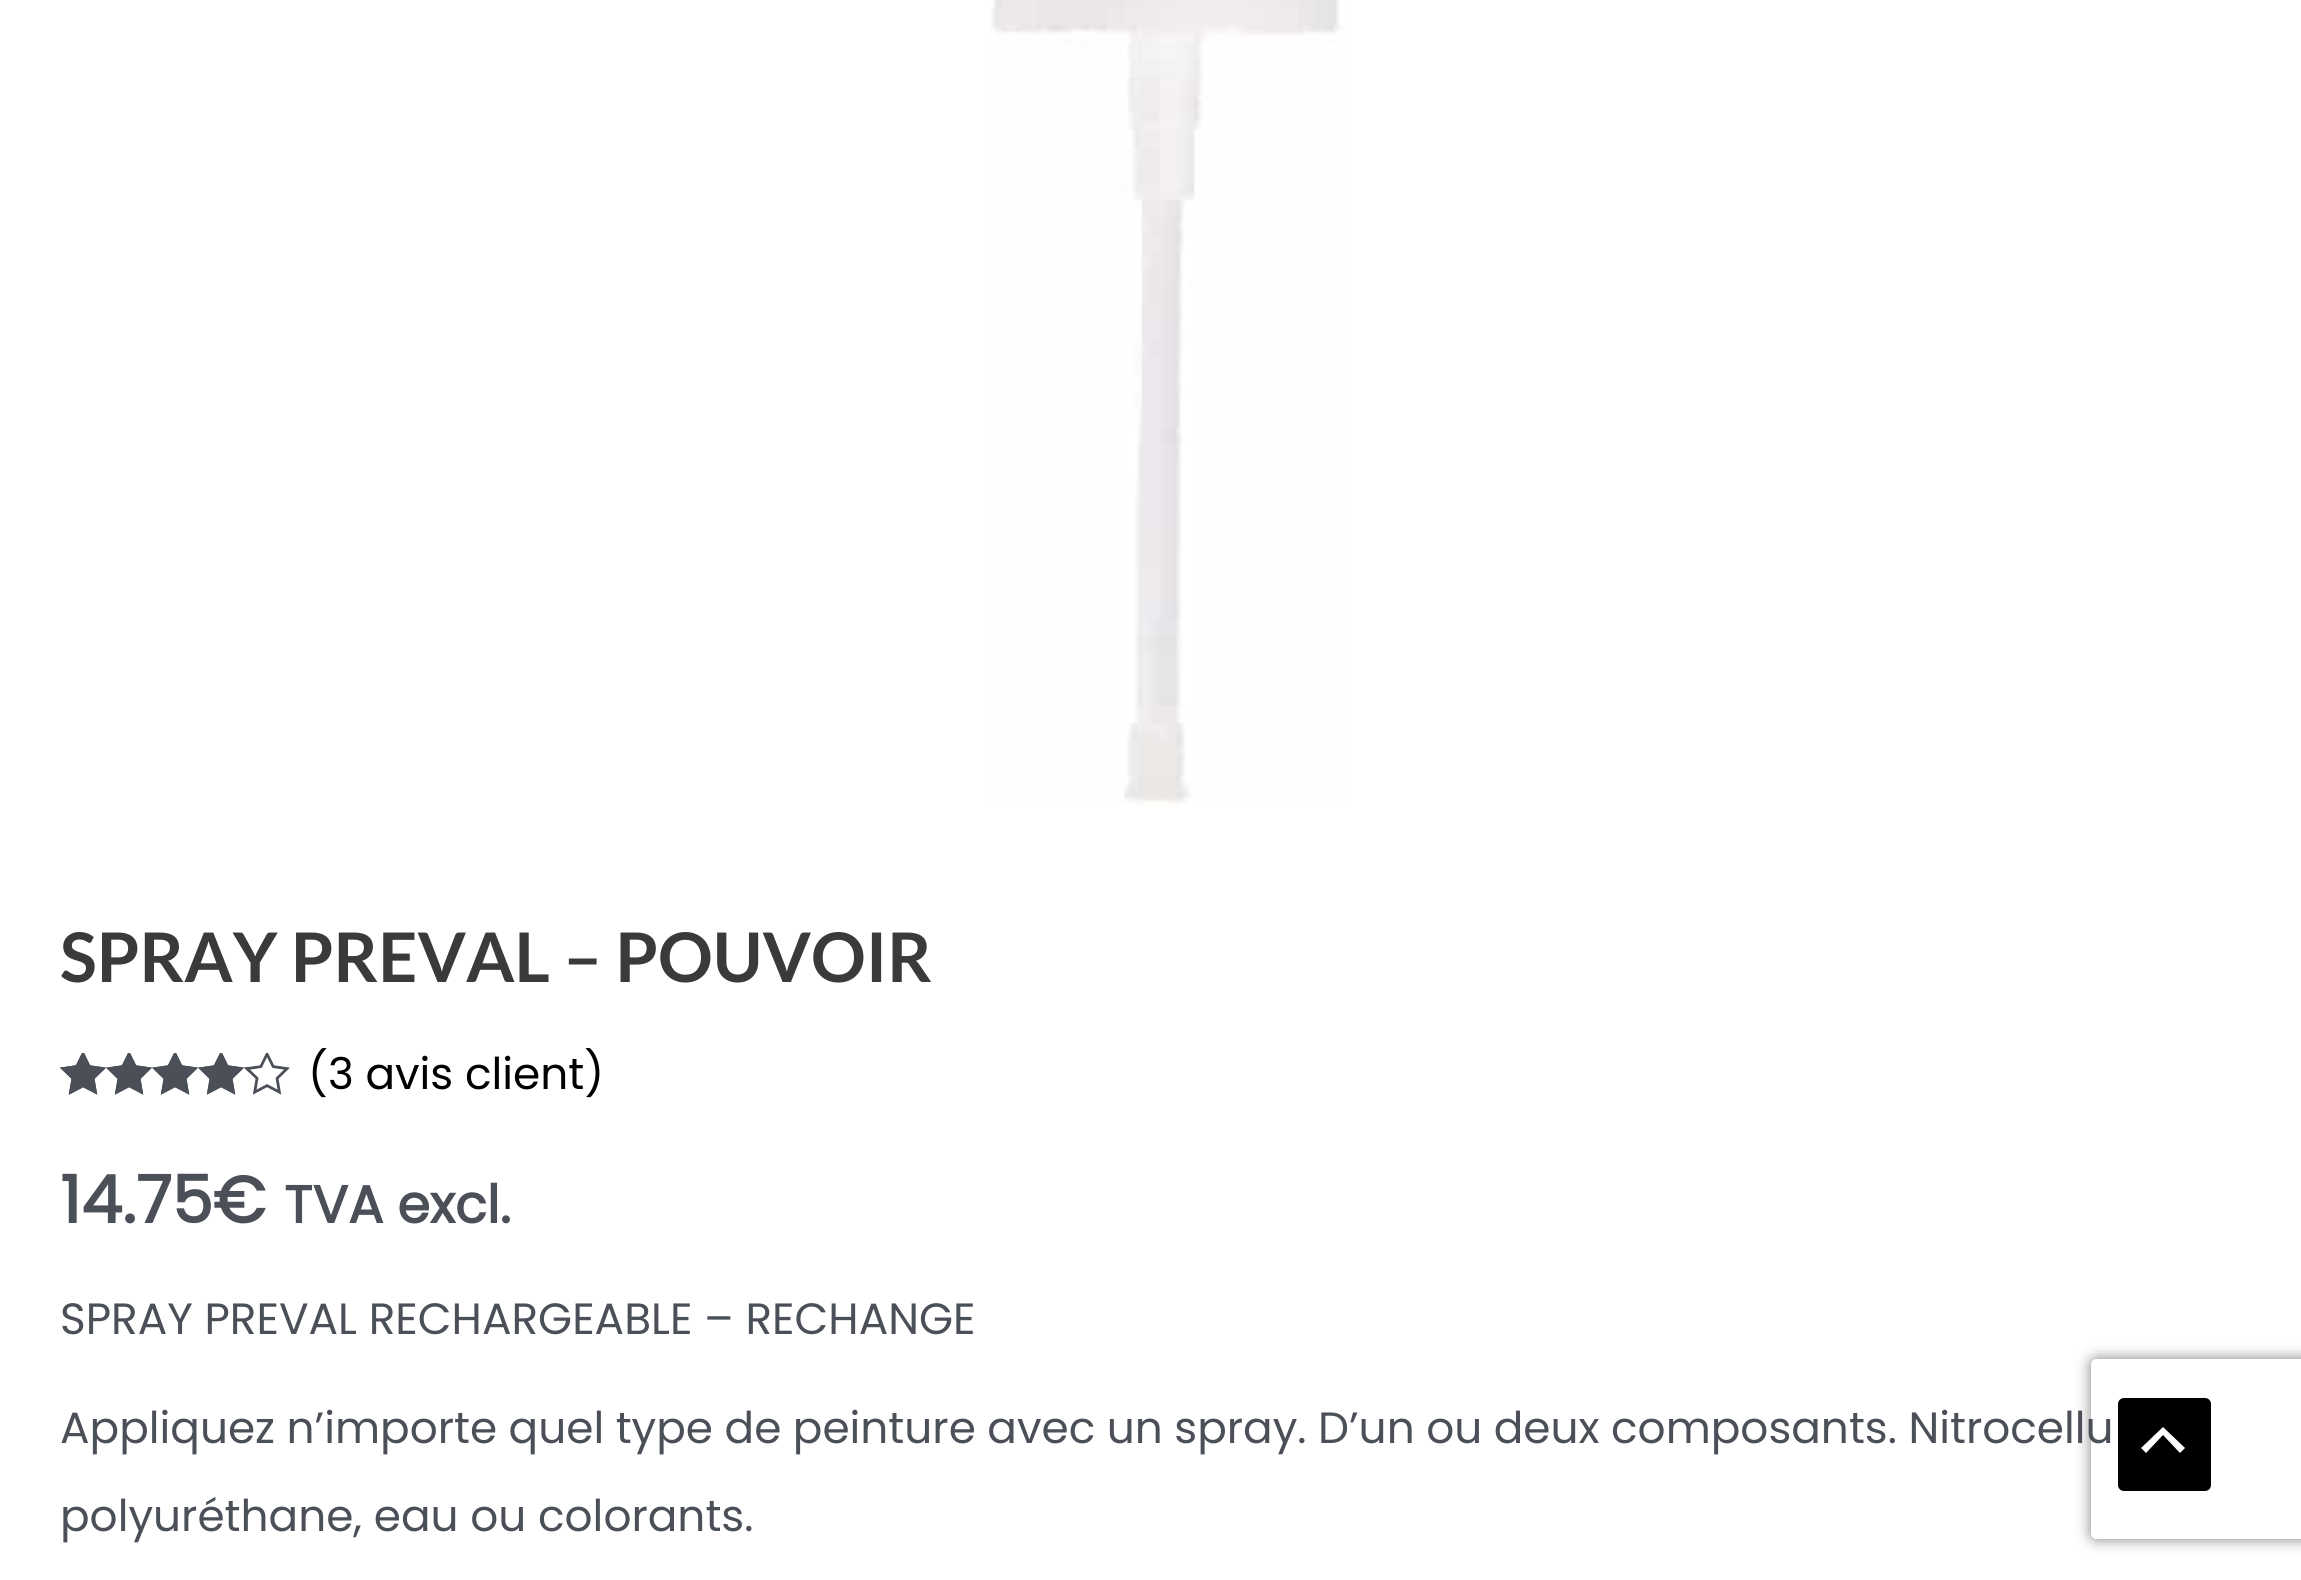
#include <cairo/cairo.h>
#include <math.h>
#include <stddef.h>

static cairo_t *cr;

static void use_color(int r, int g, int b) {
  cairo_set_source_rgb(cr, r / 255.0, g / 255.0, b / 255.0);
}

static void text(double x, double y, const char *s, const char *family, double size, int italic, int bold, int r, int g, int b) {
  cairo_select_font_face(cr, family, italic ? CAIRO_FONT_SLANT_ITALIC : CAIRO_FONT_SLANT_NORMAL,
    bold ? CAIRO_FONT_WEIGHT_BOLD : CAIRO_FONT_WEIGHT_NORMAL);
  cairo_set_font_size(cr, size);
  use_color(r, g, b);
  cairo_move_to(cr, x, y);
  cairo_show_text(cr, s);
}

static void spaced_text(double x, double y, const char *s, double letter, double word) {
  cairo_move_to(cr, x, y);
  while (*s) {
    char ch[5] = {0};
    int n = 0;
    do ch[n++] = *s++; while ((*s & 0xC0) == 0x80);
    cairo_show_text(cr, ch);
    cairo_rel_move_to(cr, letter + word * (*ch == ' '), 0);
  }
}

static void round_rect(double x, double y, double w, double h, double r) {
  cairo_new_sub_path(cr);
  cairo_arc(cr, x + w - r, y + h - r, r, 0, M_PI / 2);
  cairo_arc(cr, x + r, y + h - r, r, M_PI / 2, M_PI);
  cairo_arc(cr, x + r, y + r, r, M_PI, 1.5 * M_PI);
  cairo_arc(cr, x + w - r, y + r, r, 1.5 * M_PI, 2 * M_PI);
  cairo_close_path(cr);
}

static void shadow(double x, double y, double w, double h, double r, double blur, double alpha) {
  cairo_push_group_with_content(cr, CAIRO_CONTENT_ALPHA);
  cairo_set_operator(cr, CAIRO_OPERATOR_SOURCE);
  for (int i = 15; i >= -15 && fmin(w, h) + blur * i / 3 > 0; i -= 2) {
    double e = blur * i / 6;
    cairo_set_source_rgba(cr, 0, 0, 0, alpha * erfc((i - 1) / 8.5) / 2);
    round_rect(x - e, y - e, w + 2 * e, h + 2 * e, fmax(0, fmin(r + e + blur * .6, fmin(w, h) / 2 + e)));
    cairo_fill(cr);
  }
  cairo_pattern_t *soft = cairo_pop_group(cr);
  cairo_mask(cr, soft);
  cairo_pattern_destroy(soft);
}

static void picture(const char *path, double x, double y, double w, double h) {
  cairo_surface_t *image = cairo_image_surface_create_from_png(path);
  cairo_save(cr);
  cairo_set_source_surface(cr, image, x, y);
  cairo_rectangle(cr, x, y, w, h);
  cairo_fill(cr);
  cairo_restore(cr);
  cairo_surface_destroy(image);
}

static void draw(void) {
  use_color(255, 255, 255);
  cairo_paint(cr);
  picture("img_01.png", 990, 0, 361, 806);
  picture("img_02.png", 60, 1053, 230, 42);
  picture("img_03.png", 60, 1053, 189, 42);
  picture("img_04.png", 60, 1055, 21, 40);
  cairo_save(cr);
  cairo_set_fill_rule(cr, CAIRO_FILL_RULE_EVEN_ODD);
  cairo_new_path(cr);
  cairo_move_to(cr, 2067, 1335);
  cairo_line_to(cr, 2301, 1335);
  cairo_line_to(cr, 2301, 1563);
  cairo_line_to(cr, 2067, 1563);
  cairo_close_path(cr);
  cairo_move_to(cr, 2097, 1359);
  cairo_line_to(cr, 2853, 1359);
  cairo_curve_to(cr, 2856.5, 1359, 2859, 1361.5, 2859, 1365);
  cairo_line_to(cr, 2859, 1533);
  cairo_curve_to(cr, 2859, 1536.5, 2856.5, 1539, 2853, 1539);
  cairo_line_to(cr, 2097, 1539);
  cairo_curve_to(cr, 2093.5, 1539, 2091, 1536.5, 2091, 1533);
  cairo_line_to(cr, 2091, 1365);
  cairo_curve_to(cr, 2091, 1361.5, 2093.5, 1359, 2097, 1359);
  cairo_close_path(cr);
  cairo_clip(cr);
  use_color(128, 128, 128);
  shadow(2091, 1359, 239, 180, 6, 7.5, 1);
  cairo_restore(cr);
  use_color(0, 0, 0);
  round_rect(2118, 1398, 93, 93, 6);
  cairo_fill(cr);
  use_color(255, 255, 255);
  cairo_new_path(cr);
  cairo_move_to(cr, 2185, 1448);
  cairo_line_to(cr, 2163, 1427);
  cairo_line_to(cr, 2141, 1448);
  cairo_line_to(cr, 2146, 1453);
  cairo_line_to(cr, 2163, 1435);
  cairo_line_to(cr, 2180, 1453);
  cairo_close_path(cr);
  cairo_fill(cr);
  text(60, 982, "SPRAY PREVAL – POUVOIR", "Lato", 68.4, 0, 1, 58, 58, 58);
  text(308, 1089, "(3 avis client)", "Poppins", 43.8, 0, 0, 0, 0, 0);
  text(60, 1223, "14.75€", "Poppins", 65.5, 0, 1, 75, 79, 88);
  text(284, 1223, "TVA excl.", "Poppins", 52.5, 0, 1, 75, 79, 88);
  text(60, 1334, "SPRAY PREVAL RECHARGEABLE – RECHANGE", "Poppins", 43.8, 0, 0, 75, 79, 88);
  spaced_text(60, 1443, "Appliquez n’importe quel type de peinture avec un spray. D’un ou deux composants. Nitrocellu", 0, -0.2);
  text(60, 1531, "polyuréthane, eau ou colorants.", "Poppins", 43.8, 0, 0, 75, 79, 88);
}

int main(void) {
  cairo_surface_t *surface = cairo_image_surface_create(CAIRO_FORMAT_RGB24, 2301, 1580);
  cr = cairo_create(surface);
  cairo_font_options_t *options = cairo_font_options_create();
  cairo_font_options_set_hint_metrics(options, CAIRO_HINT_METRICS_OFF);
  cairo_font_options_set_hint_style(options, CAIRO_HINT_STYLE_NONE);
  cairo_set_font_options(cr, options);
  cairo_set_miter_limit(cr, 4);
  draw();
  cairo_surface_write_to_png(surface, "out.png");
  cairo_font_options_destroy(options);
  cairo_destroy(cr);
  cairo_surface_destroy(surface);
  return 0;
}
